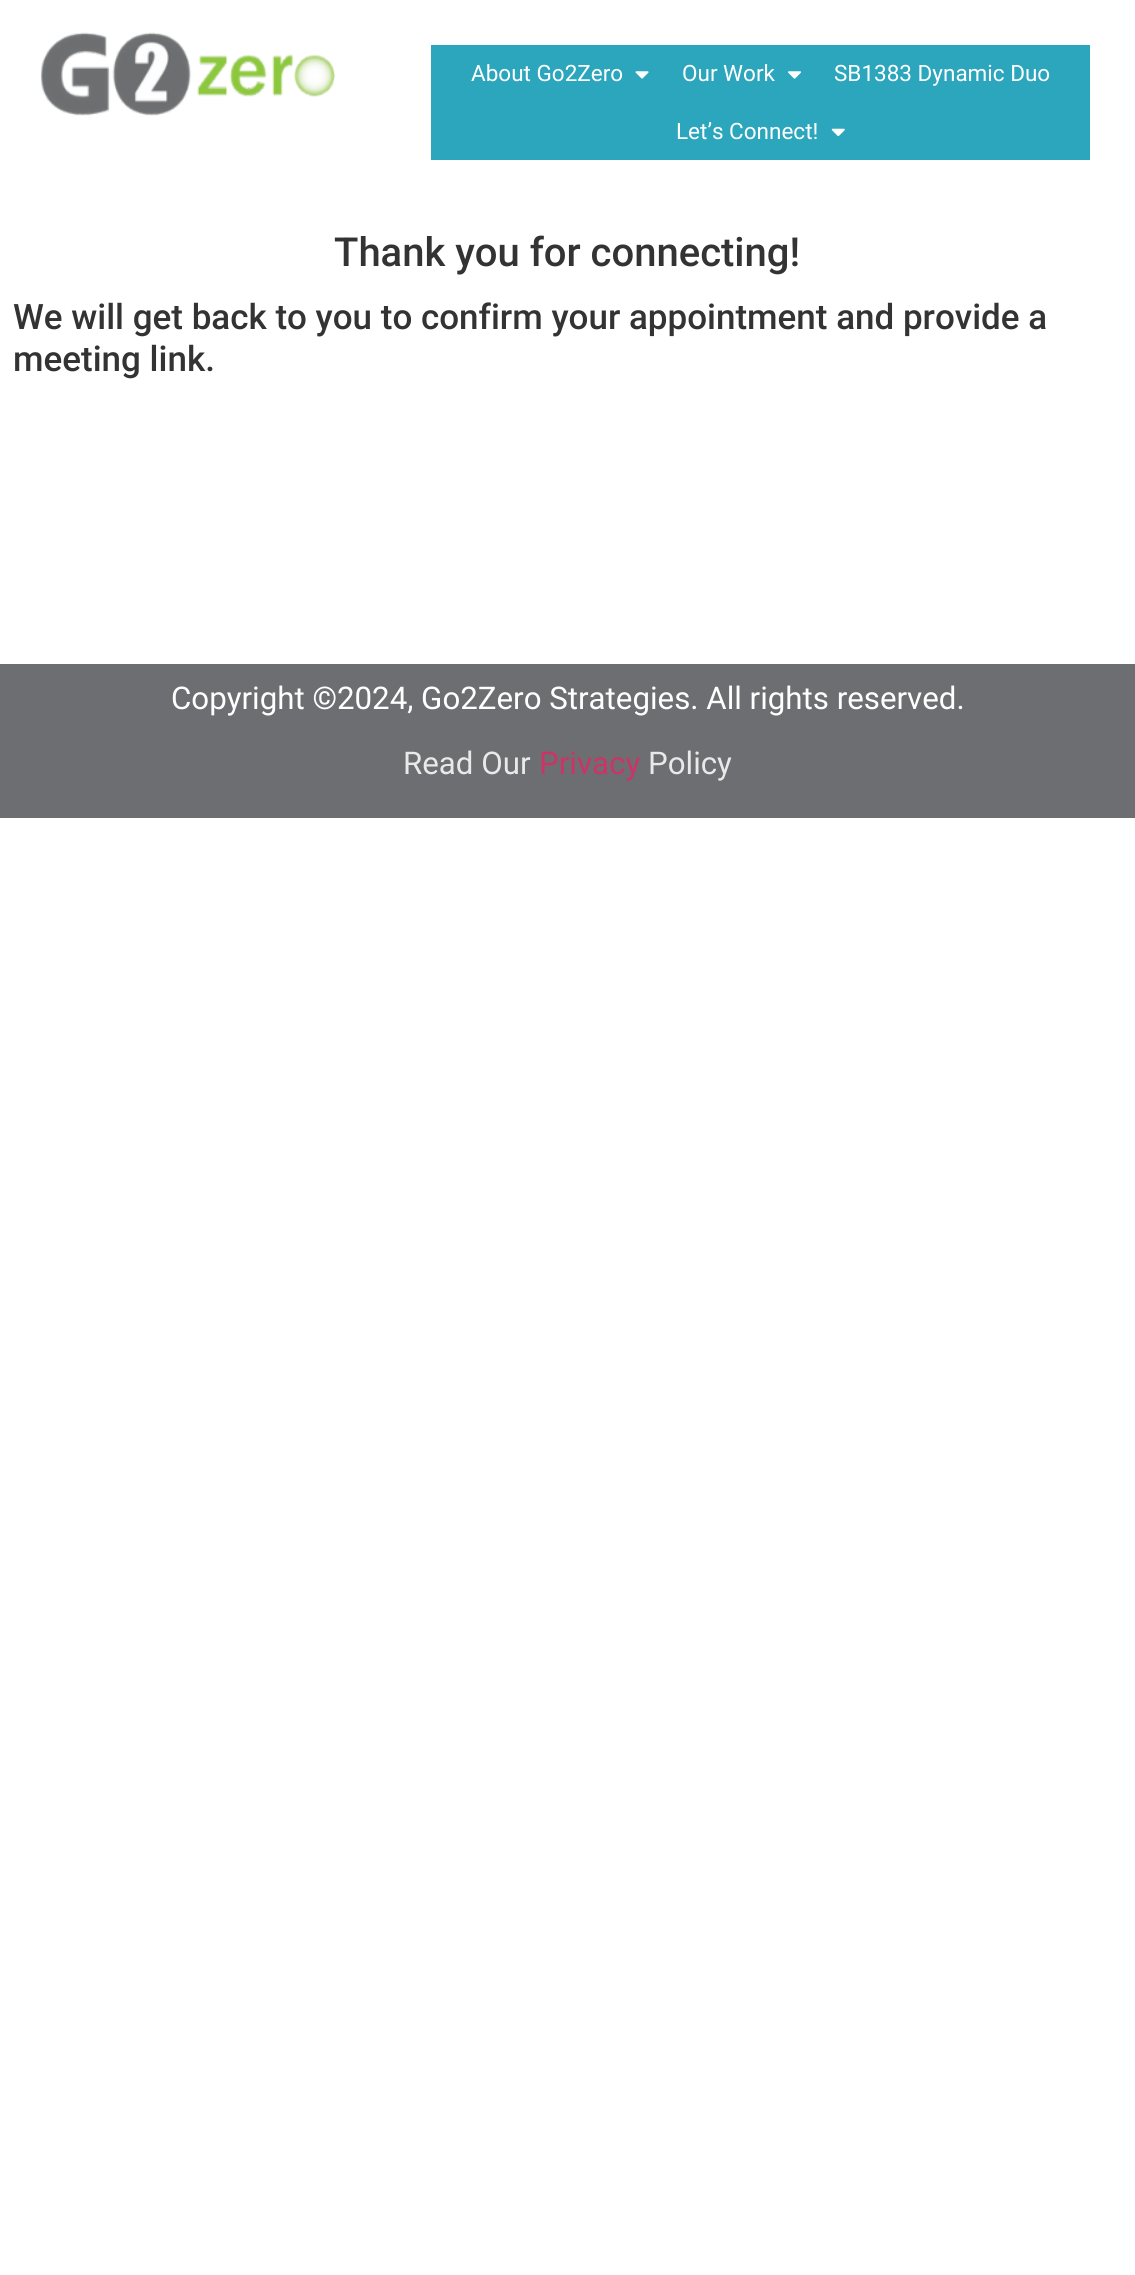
#include <cairo/cairo.h>
#include <math.h>
#include <stddef.h>

static cairo_t *cr;

static void use_color(int r, int g, int b) {
  cairo_set_source_rgb(cr, r / 255.0, g / 255.0, b / 255.0);
}

static void text(double x, double y, const char *s, const char *family, double size, int italic, int bold, int r, int g, int b) {
  cairo_select_font_face(cr, family, italic ? CAIRO_FONT_SLANT_ITALIC : CAIRO_FONT_SLANT_NORMAL,
    bold ? CAIRO_FONT_WEIGHT_BOLD : CAIRO_FONT_WEIGHT_NORMAL);
  cairo_set_font_size(cr, size);
  use_color(r, g, b);
  cairo_move_to(cr, x, y);
  cairo_show_text(cr, s);
}

static void box(double x, double y, double w, double h, int r, int g, int b) {
  use_color(r, g, b);
  cairo_rectangle(cr, x, y, w, h);
  cairo_fill(cr);
}

static void picture(const char *path, double x, double y, double w, double h) {
  cairo_surface_t *image = cairo_image_surface_create_from_png(path);
  cairo_save(cr);
  cairo_set_source_surface(cr, image, x, y);
  cairo_rectangle(cr, x, y, w, h);
  cairo_fill(cr);
  cairo_restore(cr);
  cairo_surface_destroy(image);
}

static void draw(void) {
  use_color(255, 255, 255);
  cairo_paint(cr);
  picture("img_01.png", 40, 32, 296, 84);
  box(431, 45, 659, 115, 43, 166, 189);
  picture("img_02.png", 635, 71, 14, 8);
  picture("img_03.png", 788, 71, 13, 8);
  picture("img_04.png", 831, 128, 14, 9);
  box(0, 664, 1135, 154, 109, 110, 113);
  text(471, 81, "About Go2Zero", "Roboto", 22.5, 0, 0, 255, 255, 255);
  text(682, 81, "Our Work", "Roboto", 22.5, 0, 0, 255, 255, 255);
  text(834, 81, "SB1383 Dynamic Duo", "Roboto", 22.5, 0, 0, 255, 255, 255);
  text(676, 139, "Let’s Connect!", "Roboto", 22.5, 0, 0, 255, 255, 255);
  text(334, 266, "Thank you for connecting!", "Roboto Medium", 40, 0, 0, 51, 51, 51);
  text(13, 329, "We will get back to you to confirm your appointment and provide a", "Roboto Medium", 35, 0, 0, 51, 51, 51);
  text(13, 371, "meeting link.", "Roboto Medium", 35, 0, 0, 51, 51, 51);
  text(171, 709, "Copyright ©2024, Go2Zero Strategies. All rights reserved.", "Roboto", 31.25, 0, 0, 255, 255, 255);
  text(403, 774, "Read Our", "Roboto", 31.25, 0, 0, 233, 233, 233);
  text(539, 774, "Privacy", "Roboto", 31.25, 0, 0, 204, 51, 102);
  text(648, 774, "Policy", "Roboto", 31.25, 0, 0, 233, 233, 233);
}

int main(void) {
  cairo_surface_t *surface = cairo_image_surface_create(CAIRO_FORMAT_RGB24, 1135, 2275);
  cr = cairo_create(surface);
  cairo_font_options_t *options = cairo_font_options_create();
  cairo_font_options_set_hint_metrics(options, CAIRO_HINT_METRICS_OFF);
  cairo_font_options_set_hint_style(options, CAIRO_HINT_STYLE_NONE);
  cairo_set_font_options(cr, options);
  cairo_set_miter_limit(cr, 4);
  draw();
  cairo_surface_write_to_png(surface, "out.png");
  cairo_font_options_destroy(options);
  cairo_destroy(cr);
  cairo_surface_destroy(surface);
  return 0;
}
